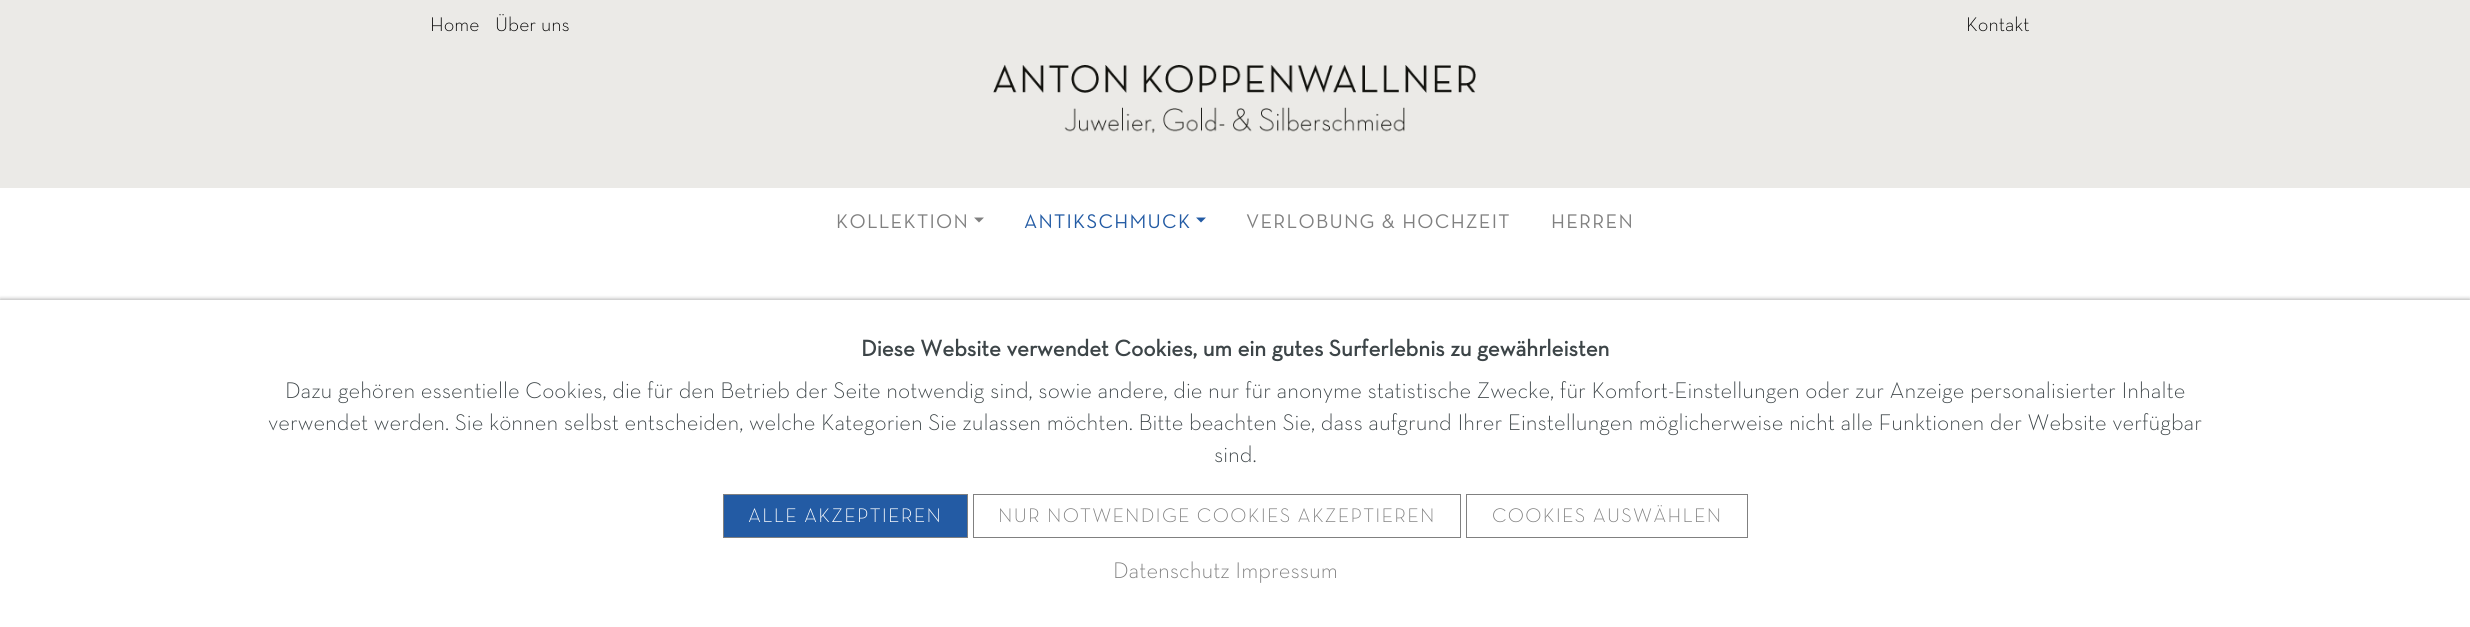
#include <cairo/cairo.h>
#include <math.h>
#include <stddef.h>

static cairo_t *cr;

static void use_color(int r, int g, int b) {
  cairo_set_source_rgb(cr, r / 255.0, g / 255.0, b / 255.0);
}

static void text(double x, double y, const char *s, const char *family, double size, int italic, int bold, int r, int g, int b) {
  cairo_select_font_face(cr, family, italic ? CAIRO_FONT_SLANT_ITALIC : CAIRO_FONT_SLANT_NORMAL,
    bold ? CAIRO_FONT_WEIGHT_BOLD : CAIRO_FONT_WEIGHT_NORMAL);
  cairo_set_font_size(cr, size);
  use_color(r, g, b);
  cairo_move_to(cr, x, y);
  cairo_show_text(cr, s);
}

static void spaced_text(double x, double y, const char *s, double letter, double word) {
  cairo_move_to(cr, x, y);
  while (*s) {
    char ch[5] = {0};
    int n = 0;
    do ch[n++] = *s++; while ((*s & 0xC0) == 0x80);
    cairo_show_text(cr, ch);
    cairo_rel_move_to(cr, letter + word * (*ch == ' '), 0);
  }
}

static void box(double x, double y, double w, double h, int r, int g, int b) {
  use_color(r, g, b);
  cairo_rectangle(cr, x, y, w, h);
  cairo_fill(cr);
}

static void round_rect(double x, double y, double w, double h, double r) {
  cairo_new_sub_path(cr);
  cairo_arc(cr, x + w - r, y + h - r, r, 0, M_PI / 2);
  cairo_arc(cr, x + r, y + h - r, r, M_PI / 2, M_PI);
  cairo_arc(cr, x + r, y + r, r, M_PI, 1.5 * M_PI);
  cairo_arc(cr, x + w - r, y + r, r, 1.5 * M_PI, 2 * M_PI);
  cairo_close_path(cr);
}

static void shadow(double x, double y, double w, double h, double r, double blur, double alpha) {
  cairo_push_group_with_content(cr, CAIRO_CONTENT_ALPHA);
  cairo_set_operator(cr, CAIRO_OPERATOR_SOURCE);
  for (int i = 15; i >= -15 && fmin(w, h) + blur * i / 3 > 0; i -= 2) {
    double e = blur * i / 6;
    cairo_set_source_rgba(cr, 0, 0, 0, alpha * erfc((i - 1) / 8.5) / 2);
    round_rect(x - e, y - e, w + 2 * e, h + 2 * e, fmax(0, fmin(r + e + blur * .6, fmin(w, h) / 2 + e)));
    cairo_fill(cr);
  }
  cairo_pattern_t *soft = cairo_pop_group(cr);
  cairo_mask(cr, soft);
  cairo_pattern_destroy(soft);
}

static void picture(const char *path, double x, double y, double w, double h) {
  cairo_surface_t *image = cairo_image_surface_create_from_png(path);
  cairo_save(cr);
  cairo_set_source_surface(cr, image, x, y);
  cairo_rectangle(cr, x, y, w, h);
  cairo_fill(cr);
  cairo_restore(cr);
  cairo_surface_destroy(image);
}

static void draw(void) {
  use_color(255, 255, 255);
  cairo_paint(cr);
  box(0, 0, 2470, 188, 235, 234, 231);
  picture("img_01.png", 993, 64, 483, 69);
  use_color(128, 128, 128);
  cairo_new_path(cr);
  cairo_move_to(cr, 974, 217.5);
  cairo_line_to(cr, 984, 217.5);
  cairo_line_to(cr, 979, 222.5);
  cairo_close_path(cr);
  cairo_fill(cr);
  use_color(35, 91, 164);
  cairo_new_path(cr);
  cairo_move_to(cr, 1196, 217.5);
  cairo_line_to(cr, 1206, 217.5);
  cairo_line_to(cr, 1201, 222.5);
  cairo_close_path(cr);
  cairo_fill(cr);
  use_color(0, 0, 0);
  shadow(0, 299, 2470, 327, 0, 2, 0.3);
  box(0, 300, 2470, 327, 255, 255, 255);
  use_color(35, 91, 164);
  cairo_rectangle(cr, 723.5, 494.5, 244, 43);
  cairo_fill_preserve(cr);
  use_color(128, 128, 128);
  cairo_set_line_width(cr, 1);
  cairo_stroke(cr);
  cairo_rectangle(cr, 973.5, 494.5, 487, 43);
  cairo_stroke(cr);
  cairo_rectangle(cr, 1466.5, 494.5, 281, 43);
  cairo_stroke(cr);
  text(430, 31, "Home", "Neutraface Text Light", 20.1, 0, 0, 0, 0, 0);
  text(495, 31, "Über uns", "Neutraface Text Light", 20.1, 0, 0, 0, 0, 0);
  text(1966, 31, "Kontakt", "Neutraface Text Light", 20.1, 0, 0, 0, 0, 0);
  cairo_select_font_face(cr, "Neutraface Text", CAIRO_FONT_SLANT_NORMAL, CAIRO_FONT_WEIGHT_NORMAL);
  use_color(128, 128, 128);
  spaced_text(836, 228, "KOLLEKTION", 1.25, 0);
  use_color(35, 91, 164);
  spaced_text(1024, 228, "ANTIKSCHMUCK", 1.25, 0);
  use_color(128, 128, 128);
  spaced_text(1246, 228, "VERLOBUNG & HOCHZEIT", 1.25, 0);
  spaced_text(1551, 228, "HERREN", 1.25, 0);
  text(861, 356, "Diese Website verwendet Cookies, um ein gutes Surferlebnis zu gewährleisten", "Neutraface Text", 23, 0, 1, 61, 69, 72);
  text(285, 398, "Dazu gehören essentielle Cookies, die für den Betrieb der Seite notwendig sind, sowie andere, die nur für anonyme statistische Zwecke, für Komfort-Einstellungen oder zur Anzeige personalisierter Inhalte", "Neutraface Text Light", 23, 0, 0, 61, 69, 72);
  text(268, 430, "verwendet werden. Sie können selbst entscheiden, welche Kategorien Sie zulassen möchten. Bitte beachten Sie, dass aufgrund Ihrer Einstellungen möglicherweise nicht alle Funktionen der Website verfügbar", "Neutraface Text Light", 23, 0, 0, 61, 69, 72);
  text(1214, 462, "sind.", "Neutraface Text Light", 23, 0, 0, 61, 69, 72);
  cairo_set_font_size(cr, 20);
  use_color(255, 255, 255);
  spaced_text(748, 522, "ALLE AKZEPTIEREN", 1.25, 0);
  use_color(128, 128, 128);
  spaced_text(998, 522, "NUR NOTWENDIGE COOKIES AKZEPTIEREN", 1.25, 0);
  spaced_text(1492, 522, "COOKIES AUSWÄHLEN", 1.25, 0);
  text(1113, 578, "Datenschutz Impressum", "Neutraface Text Light", 23, 0, 0, 128, 128, 128);
}

int main(void) {
  cairo_surface_t *surface = cairo_image_surface_create(CAIRO_FORMAT_RGB24, 2470, 627);
  cr = cairo_create(surface);
  cairo_font_options_t *options = cairo_font_options_create();
  cairo_font_options_set_hint_metrics(options, CAIRO_HINT_METRICS_OFF);
  cairo_font_options_set_hint_style(options, CAIRO_HINT_STYLE_NONE);
  cairo_set_font_options(cr, options);
  cairo_set_miter_limit(cr, 4);
  draw();
  cairo_surface_write_to_png(surface, "out.png");
  cairo_font_options_destroy(options);
  cairo_destroy(cr);
  cairo_surface_destroy(surface);
  return 0;
}
